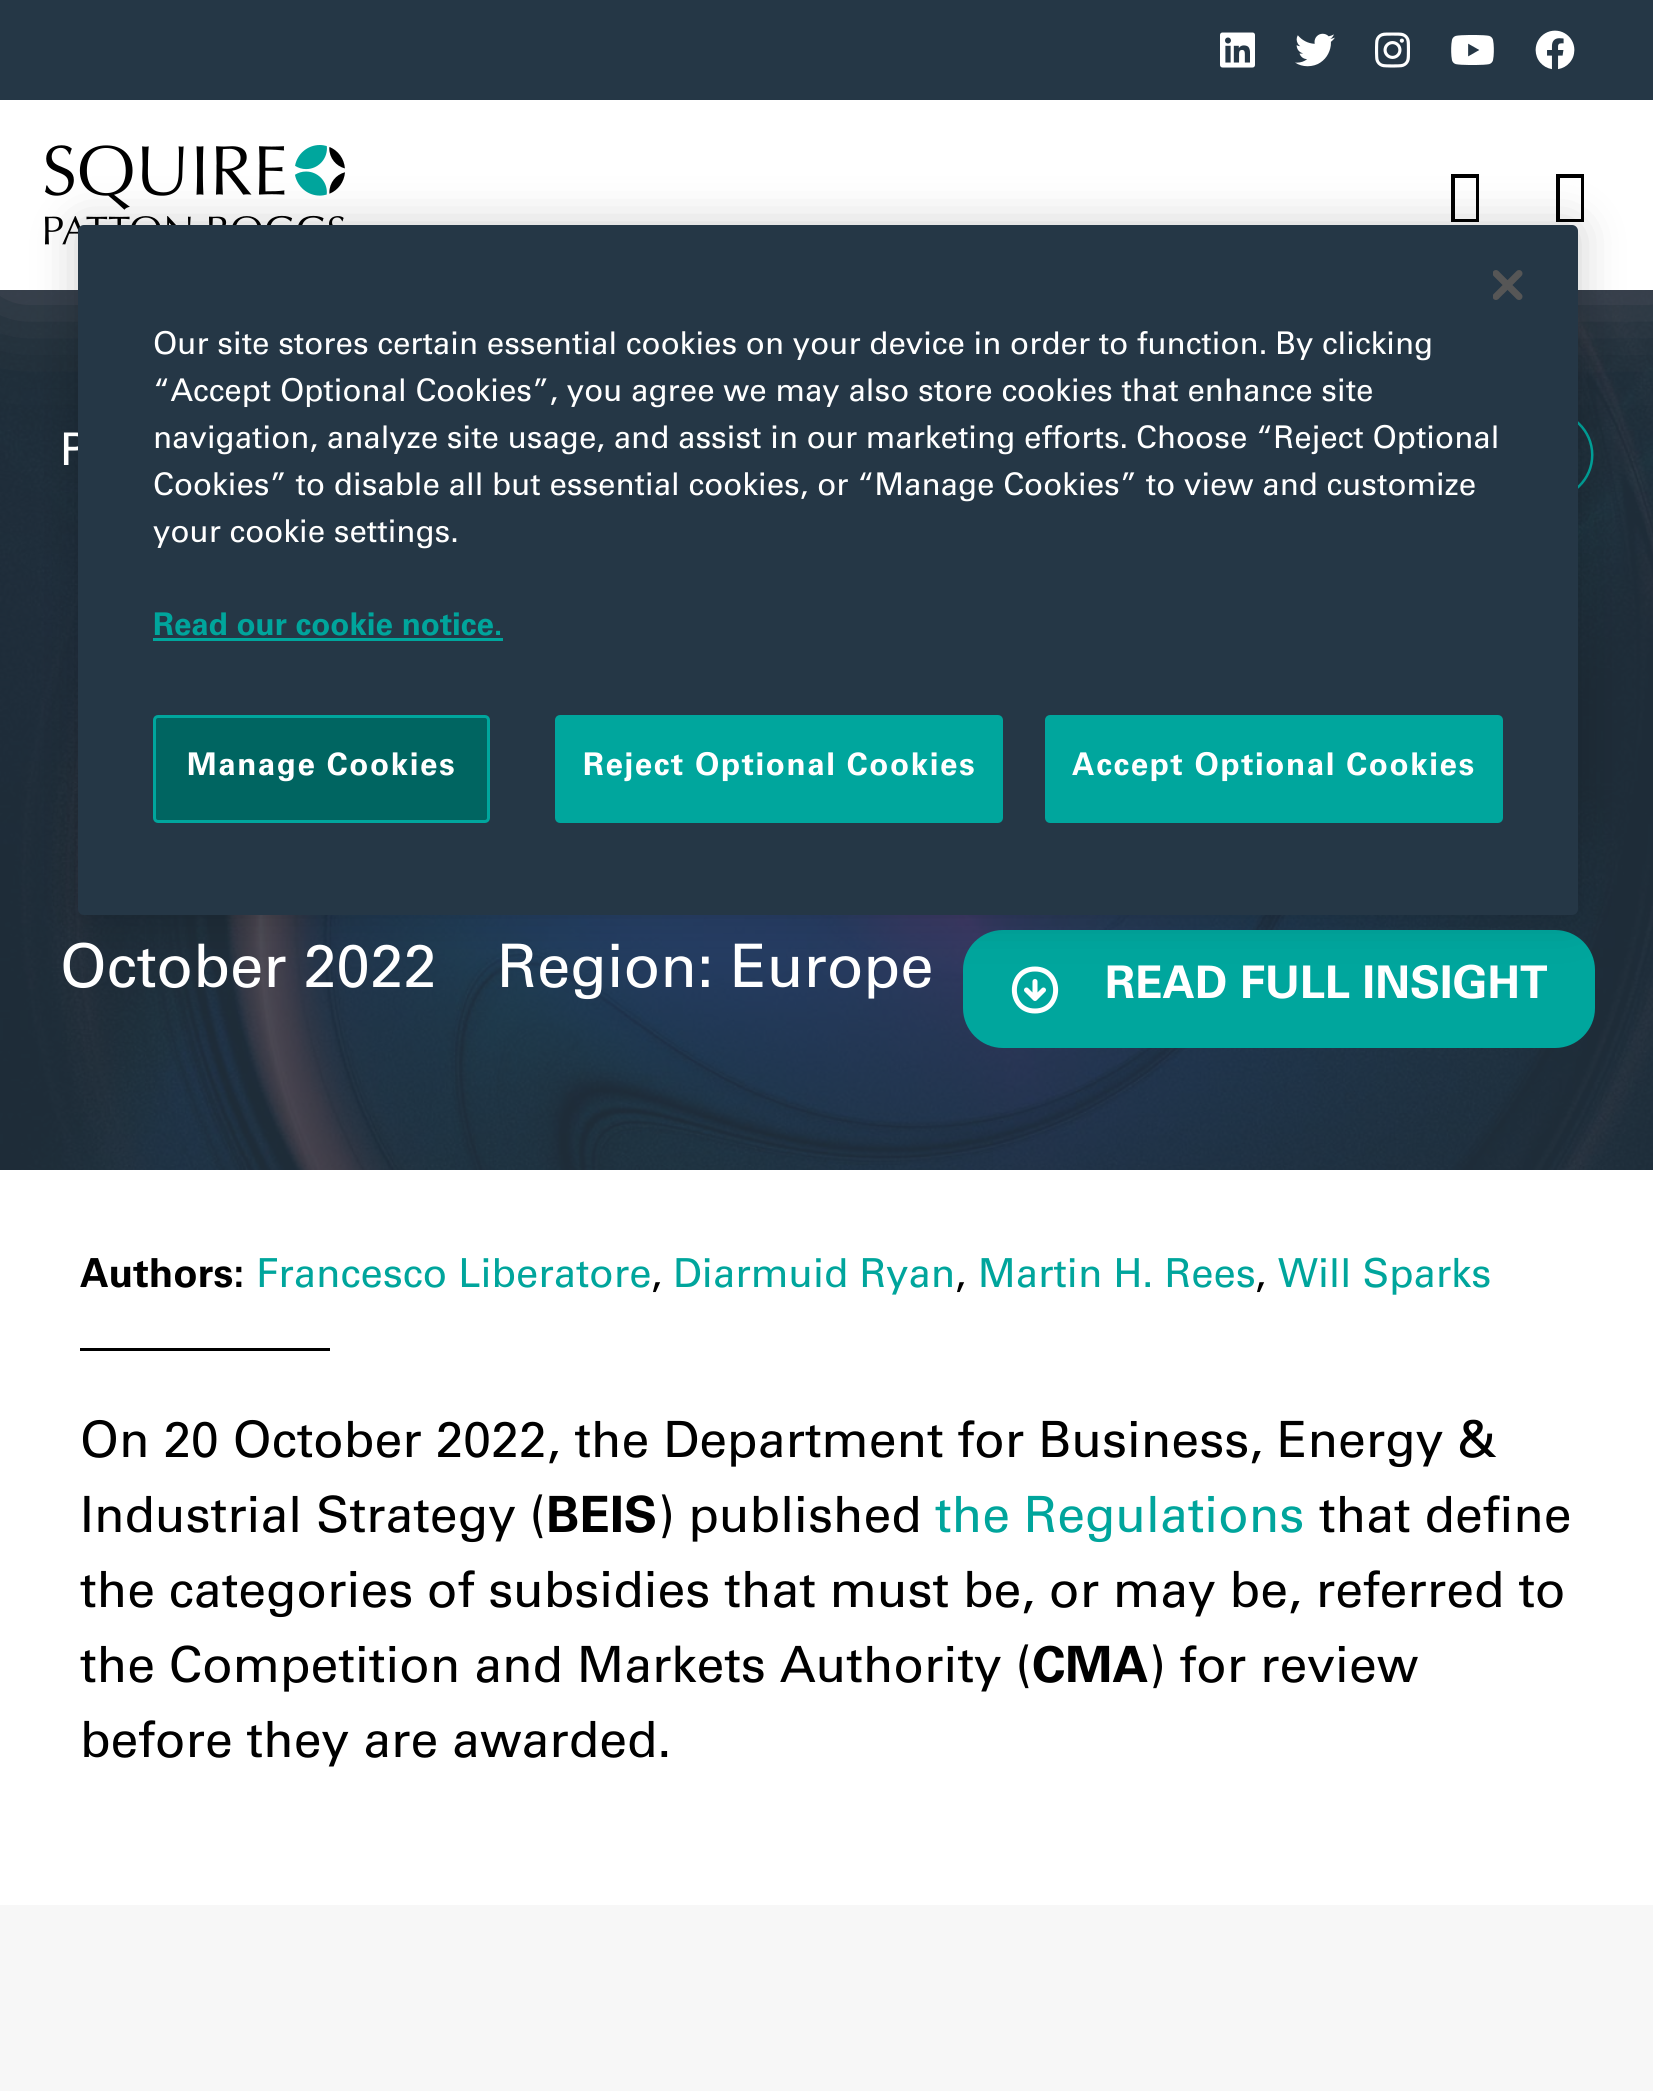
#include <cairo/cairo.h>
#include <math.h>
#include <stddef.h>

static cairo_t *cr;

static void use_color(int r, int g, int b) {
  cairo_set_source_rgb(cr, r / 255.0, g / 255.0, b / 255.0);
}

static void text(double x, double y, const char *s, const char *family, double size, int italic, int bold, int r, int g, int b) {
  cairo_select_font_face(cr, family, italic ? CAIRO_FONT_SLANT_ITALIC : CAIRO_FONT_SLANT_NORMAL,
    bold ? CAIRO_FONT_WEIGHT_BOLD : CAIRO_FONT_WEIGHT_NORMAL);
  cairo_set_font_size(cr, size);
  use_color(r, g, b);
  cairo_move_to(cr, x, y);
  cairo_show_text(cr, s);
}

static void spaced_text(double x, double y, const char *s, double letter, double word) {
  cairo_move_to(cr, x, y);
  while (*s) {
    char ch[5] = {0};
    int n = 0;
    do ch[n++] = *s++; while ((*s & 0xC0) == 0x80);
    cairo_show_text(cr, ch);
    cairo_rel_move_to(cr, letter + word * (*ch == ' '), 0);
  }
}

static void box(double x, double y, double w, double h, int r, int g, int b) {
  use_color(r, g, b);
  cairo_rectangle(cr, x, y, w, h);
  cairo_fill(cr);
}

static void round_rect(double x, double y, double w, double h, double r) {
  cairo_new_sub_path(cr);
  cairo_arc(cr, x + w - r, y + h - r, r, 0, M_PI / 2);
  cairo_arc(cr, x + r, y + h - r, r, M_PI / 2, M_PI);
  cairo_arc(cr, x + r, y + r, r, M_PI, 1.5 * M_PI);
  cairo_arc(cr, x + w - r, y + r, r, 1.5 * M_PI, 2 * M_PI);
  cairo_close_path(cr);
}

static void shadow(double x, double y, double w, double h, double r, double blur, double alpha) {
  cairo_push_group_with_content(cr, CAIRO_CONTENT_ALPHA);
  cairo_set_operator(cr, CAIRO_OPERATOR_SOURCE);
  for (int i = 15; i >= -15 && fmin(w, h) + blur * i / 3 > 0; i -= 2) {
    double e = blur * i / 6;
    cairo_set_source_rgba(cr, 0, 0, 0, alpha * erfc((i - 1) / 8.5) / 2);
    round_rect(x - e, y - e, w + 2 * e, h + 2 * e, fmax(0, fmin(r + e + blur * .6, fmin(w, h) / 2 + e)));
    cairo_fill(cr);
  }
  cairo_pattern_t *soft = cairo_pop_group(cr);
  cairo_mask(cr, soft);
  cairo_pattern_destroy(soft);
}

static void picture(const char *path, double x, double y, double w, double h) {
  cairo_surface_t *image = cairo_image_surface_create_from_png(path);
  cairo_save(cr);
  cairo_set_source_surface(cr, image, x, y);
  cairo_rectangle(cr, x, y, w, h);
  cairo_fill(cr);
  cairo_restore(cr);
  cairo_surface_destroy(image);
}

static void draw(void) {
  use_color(255, 255, 255);
  cairo_paint(cr);
  picture("img_08.png", 0, 290, 1653, 880);
  picture("img_09.png", 1578, 421, 16, 68);
  use_color(96, 96, 105);
  shadow(0, -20, 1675, 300, 0, 50, 1);
  box(0, 100, 1653, 190, 255, 255, 255);
  picture("img_07.png", 45, 145, 300, 100);
  use_color(0, 0, 0);
  cairo_new_path(cr);
  cairo_move_to(cr, 1451, 222);
  cairo_line_to(cr, 1451, 174);
  cairo_line_to(cr, 1479, 174);
  cairo_line_to(cr, 1479, 222);
  cairo_close_path(cr);
  cairo_move_to(cr, 1455, 219);
  cairo_line_to(cr, 1476, 219);
  cairo_line_to(cr, 1476, 178);
  cairo_line_to(cr, 1455, 178);
  cairo_close_path(cr);
  cairo_fill(cr);
  cairo_new_path(cr);
  cairo_move_to(cr, 1556, 222);
  cairo_line_to(cr, 1556, 174);
  cairo_line_to(cr, 1584, 174);
  cairo_line_to(cr, 1584, 222);
  cairo_close_path(cr);
  cairo_move_to(cr, 1560, 219);
  cairo_line_to(cr, 1581, 219);
  cairo_line_to(cr, 1581, 178);
  cairo_line_to(cr, 1560, 178);
  cairo_close_path(cr);
  cairo_fill(cr);
  use_color(0, 166, 157);
  round_rect(964.5, 931.5, 629, 115, 38.5);
  cairo_fill_preserve(cr);
  cairo_set_line_width(cr, 3);
  cairo_stroke(cr);
  cairo_new_path(cr);
  cairo_move_to(cr, 1035, 1011);
  cairo_curve_to(cr, 1062.5, 1011, 1062.5, 969, 1035, 969);
  cairo_curve_to(cr, 1007.5, 969, 1007.5, 1011, 1035, 1011);
  cairo_close_path(cr);
  cairo_move_to(cr, 1026.5, 990);
  cairo_line_to(cr, 1035, 998.5);
  cairo_line_to(cr, 1043.5, 990);
  cairo_move_to(cr, 1035, 981.5);
  cairo_line_to(cr, 1035, 998.5);
  use_color(255, 255, 255);
  cairo_set_line_width(cr, 5);
  cairo_set_line_cap(cr, CAIRO_LINE_CAP_ROUND);
  cairo_set_line_join(cr, CAIRO_LINE_JOIN_ROUND);
  cairo_stroke(cr);
  use_color(0, 0, 0);
  shadow(78, 225, 1500, 690, 6, 22.5, 0.2);
  box(0, 0, 1653, 100, 37, 55, 70);
  picture("img_02.png", 1220, 32, 35, 36);
  picture("img_03.png", 1295, 33, 40, 34);
  picture("img_04.png", 1375, 32, 35, 36);
  picture("img_05.png", 1451, 35, 43, 30);
  picture("img_06.png", 1535, 30, 40, 40);
  box(80, 1348, 250, 3, 0, 0, 0);
  box(0, 1905, 1653, 186, 247, 247, 247);
  text(60, 465, "P", "Univers", 45, 0, 0, 255, 255, 255);
  use_color(37, 55, 70);
  round_rect(78, 225, 1500, 690, 6);
  cairo_fill(cr);
  picture("img_01.png", 1493, 270, 30, 30);
  use_color(0, 101, 97);
  round_rect(154.5, 716.5, 334, 105, 3.5);
  cairo_fill_preserve(cr);
  use_color(0, 166, 157);
  cairo_set_line_width(cr, 3);
  cairo_set_line_cap(cr, CAIRO_LINE_CAP_BUTT);
  cairo_set_line_join(cr, CAIRO_LINE_JOIN_MITER);
  cairo_stroke(cr);
  cairo_select_font_face(cr, "Univers", CAIRO_FONT_SLANT_NORMAL, CAIRO_FONT_WEIGHT_BOLD);
  cairo_set_font_size(cr, 31.3);
  use_color(255, 255, 255);
  spaced_text(187, 775, "Manage Cookies", 1.6, 0);
  use_color(0, 166, 157);
  round_rect(1046.5, 716.5, 455, 105, 3.5);
  cairo_fill_preserve(cr);
  cairo_stroke(cr);
  use_color(255, 255, 255);
  spaced_text(1072, 775, "Accept Optional Cookies", 1.6, 0);
  use_color(0, 166, 157);
  round_rect(556.5, 716.5, 445, 105, 3.5);
  cairo_fill_preserve(cr);
  cairo_stroke(cr);
  use_color(255, 255, 255);
  spaced_text(583, 775, "Reject Optional Cookies", 1.6, 0);
  text(153, 635, "Read our cookie notice.", "Univers", 31.3, 0, 1, 0, 165, 156);
  box(153, 638, 350, 3, 0, 166, 157);
  text(153, 542, "your cookie settings.", "Univers", 31.3, 0, 0, 255, 255, 255);
  text(153, 495, "Cookies” to disable all but essential cookies, or “Manage Cookies” to view and customize", "Univers", 31.3, 0, 0, 255, 255, 255);
  text(1136, 448, "Choose “Reject Optional", "Univers", 31.3, 0, 0, 255, 255, 255);
  text(153, 448, "navigation, analyze site usage, and assist in our marketing efforts.", "Univers", 31.3, 0, 0, 255, 255, 255);
  text(153, 401, "“Accept Optional Cookies”, you agree we may also store cookies that enhance site", "Univers", 31.3, 0, 0, 255, 255, 255);
  text(1275, 354, "By clicking", "Univers", 31.3, 0, 0, 255, 255, 255);
  text(153, 354, "Our site stores certain essential cookies on your device in order to function.", "Univers", 31.3, 0, 0, 255, 255, 255);
  text(60, 987, "October 2022", "Univers", 60, 0, 0, 255, 255, 255);
  text(497, 987, "Region: Europe", "Univers", 60, 0, 0, 255, 255, 255);
  text(1105, 998, "READ FULL INSIGHT", "Univers", 45, 0, 1, 255, 255, 255);
  text(80, 1287, "Authors:", "Univers", 40, 0, 1, 0, 0, 0);
  text(256, 1287, "Francesco Liberatore", "Univers", 40, 0, 0, 0, 165, 156);
  text(651, 1287, ",", "Univers", 40, 0, 0, 0, 0, 0);
  text(673, 1287, "Diarmuid Ryan", "Univers", 40, 0, 0, 0, 165, 156);
  text(955, 1287, ",", "Univers", 40, 0, 0, 0, 0, 0);
  text(978, 1287, "Martin H. Rees", "Univers", 40, 0, 0, 0, 165, 156);
  text(1255, 1287, ",", "Univers", 40, 0, 0, 0, 0, 0);
  text(1278, 1287, "Will Sparks", "Univers", 40, 0, 0, 0, 165, 156);
  text(80, 1457, "On 20 October 2022, the Department for Business, Energy &", "Univers", 50, 0, 0, 0, 0, 0);
  text(80, 1532, "Industrial Strategy (", "Univers", 50, 0, 0, 0, 0, 0);
  text(546, 1532, "BEIS", "Univers", 50, 0, 1, 0, 0, 0);
  text(658, 1532, ") published", "Univers", 50, 0, 0, 0, 0, 0);
  text(935, 1532, "the Regulations", "Univers", 50, 0, 0, 0, 165, 156);
  text(1319, 1532, "that define", "Univers", 50, 0, 0, 0, 0, 0);
  text(80, 1607, "the categories of subsidies that must be, or may be, referred to", "Univers", 50, 0, 0, 0, 0, 0);
  text(80, 1682, "the Competition and Markets Authority (", "Univers", 50, 0, 0, 0, 0, 0);
  text(1032, 1682, "CMA", "Univers", 50, 0, 1, 0, 0, 0);
  text(1149, 1682, ") for review", "Univers", 50, 0, 0, 0, 0, 0);
  text(80, 1757, "before they are awarded.", "Univers", 50, 0, 0, 0, 0, 0);
}

int main(void) {
  cairo_surface_t *surface = cairo_image_surface_create(CAIRO_FORMAT_RGB24, 1653, 2091);
  cr = cairo_create(surface);
  cairo_font_options_t *options = cairo_font_options_create();
  cairo_font_options_set_hint_metrics(options, CAIRO_HINT_METRICS_OFF);
  cairo_font_options_set_hint_style(options, CAIRO_HINT_STYLE_NONE);
  cairo_set_font_options(cr, options);
  cairo_set_miter_limit(cr, 4);
  draw();
  cairo_surface_write_to_png(surface, "out.png");
  cairo_font_options_destroy(options);
  cairo_destroy(cr);
  cairo_surface_destroy(surface);
  return 0;
}
